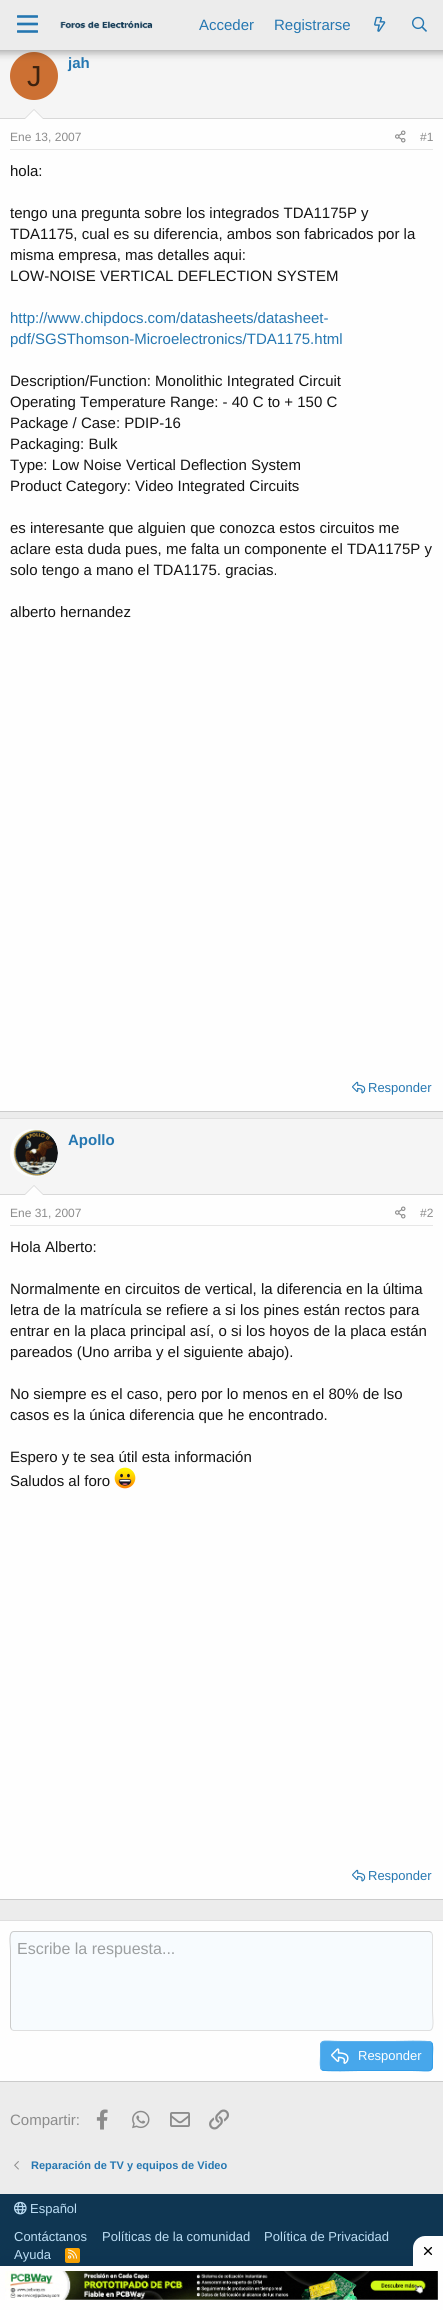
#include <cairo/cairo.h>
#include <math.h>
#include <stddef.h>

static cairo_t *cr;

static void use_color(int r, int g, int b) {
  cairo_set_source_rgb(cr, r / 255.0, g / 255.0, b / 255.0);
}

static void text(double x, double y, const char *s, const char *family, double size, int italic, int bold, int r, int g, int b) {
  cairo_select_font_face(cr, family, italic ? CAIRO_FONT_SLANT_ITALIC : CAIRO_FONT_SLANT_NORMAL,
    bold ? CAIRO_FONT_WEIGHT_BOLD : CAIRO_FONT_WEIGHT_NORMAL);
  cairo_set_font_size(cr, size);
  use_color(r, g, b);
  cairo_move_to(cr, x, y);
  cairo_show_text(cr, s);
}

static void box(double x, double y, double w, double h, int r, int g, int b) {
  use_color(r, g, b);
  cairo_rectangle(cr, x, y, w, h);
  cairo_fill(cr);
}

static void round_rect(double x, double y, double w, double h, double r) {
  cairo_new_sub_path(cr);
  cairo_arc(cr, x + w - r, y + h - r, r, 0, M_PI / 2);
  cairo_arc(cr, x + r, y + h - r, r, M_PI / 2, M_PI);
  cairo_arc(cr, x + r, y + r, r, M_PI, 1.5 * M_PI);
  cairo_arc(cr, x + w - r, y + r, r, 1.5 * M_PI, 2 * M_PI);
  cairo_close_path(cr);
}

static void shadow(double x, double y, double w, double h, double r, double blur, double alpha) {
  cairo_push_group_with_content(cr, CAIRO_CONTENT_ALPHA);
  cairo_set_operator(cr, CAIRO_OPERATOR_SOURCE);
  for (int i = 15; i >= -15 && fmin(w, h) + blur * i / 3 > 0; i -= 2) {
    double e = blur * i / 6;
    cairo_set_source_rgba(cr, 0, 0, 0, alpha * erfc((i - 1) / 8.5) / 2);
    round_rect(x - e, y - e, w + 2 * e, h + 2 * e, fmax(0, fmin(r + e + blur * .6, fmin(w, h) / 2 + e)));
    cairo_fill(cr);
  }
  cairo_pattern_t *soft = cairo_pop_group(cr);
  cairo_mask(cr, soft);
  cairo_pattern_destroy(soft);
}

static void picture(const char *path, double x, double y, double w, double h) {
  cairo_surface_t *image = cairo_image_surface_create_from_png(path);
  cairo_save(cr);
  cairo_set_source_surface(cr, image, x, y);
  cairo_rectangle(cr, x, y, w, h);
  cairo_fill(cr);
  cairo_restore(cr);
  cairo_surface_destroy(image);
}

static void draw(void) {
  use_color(236, 236, 236);
  cairo_paint(cr);
  box(0, 50, 443, 68, 245, 245, 245);
  use_color(204, 112, 51);
  cairo_arc(cr, 34, 76, 24, 0, 2 * M_PI);
  cairo_fill(cr);
  use_color(0, 0, 0);
  shadow(-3, -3, 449, 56, 0, 4, 0.3);
  box(0, 0, 443, 50, 236, 236, 236);
  picture("img_01.png", 17, 15, 21, 18);
  picture("img_02.png", 60, 20, 93, 9);
  picture("img_03.png", 374, 16, 12, 16);
  picture("img_04.png", 412, 16, 15, 16);
  box(0, 119, 443, 992, 254, 254, 254);
  box(0, 1111, 443, 1, 203, 203, 203);
  box(0, 118, 443, 1, 216, 216, 216);
  cairo_new_path(cr);
  cairo_move_to(cr, 44, 119);
  cairo_line_to(cr, 24, 119);
  cairo_line_to(cr, 34, 109);
  cairo_close_path(cr);
  cairo_fill(cr);
  use_color(254, 254, 254);
  cairo_new_path(cr);
  cairo_move_to(cr, 43, 119);
  cairo_line_to(cr, 25, 119);
  cairo_line_to(cr, 34, 110);
  cairo_close_path(cr);
  cairo_fill(cr);
  box(10, 149, 423, 1, 231, 231, 231);
  picture("img_05.png", 395, 130, 11, 13);
  picture("img_06.png", 352, 1081, 14, 13);
  box(0, 1195, 443, 704, 254, 254, 254);
  box(0, 1118, 443, 1, 223, 223, 223);
  box(0, 1899, 443, 1, 203, 203, 203);
  box(0, 1119, 443, 75, 245, 245, 245);
  box(0, 1194, 443, 1, 216, 216, 216);
  use_color(254, 254, 254);
  cairo_arc(cr, 34, 1153, 24, 0, 2 * M_PI);
  cairo_fill(cr);
  picture("img_07.png", 13, 1129, 45, 48);
  use_color(216, 216, 216);
  cairo_new_path(cr);
  cairo_move_to(cr, 44, 1195);
  cairo_line_to(cr, 24, 1195);
  cairo_line_to(cr, 34, 1185);
  cairo_close_path(cr);
  cairo_fill(cr);
  use_color(254, 254, 254);
  cairo_new_path(cr);
  cairo_move_to(cr, 43, 1195);
  cairo_line_to(cr, 25, 1195);
  cairo_line_to(cr, 34, 1186);
  cairo_close_path(cr);
  cairo_fill(cr);
  box(10, 1225, 423, 1, 231, 231, 231);
  picture("img_05.png", 395, 1206, 11, 13);
  picture("img_08.png", 114, 1467, 22, 22);
  picture("img_06.png", 352, 1869, 14, 13);
  box(0, 1921, 443, 160, 254, 254, 254);
  box(0, 1920, 443, 1, 223, 223, 223);
  box(0, 2081, 443, 1, 203, 203, 203);
  use_color(247, 251, 254);
  round_rect(10, 1931, 423, 100, 4);
  cairo_fill(cr);
  cairo_new_path(cr);
  cairo_move_to(cr, 431.5, 1932.5);
  cairo_line_to(cr, 432.5, 1935);
  cairo_line_to(cr, 432.5, 2011.5);
  cairo_curve_to(cr, 432.5, 2018.5, 435, 2030.5, 429, 2030.5);
  cairo_line_to(cr, 13.5, 2030.5);
  cairo_line_to(cr, 11.5, 2029.5);
  use_color(223, 223, 223);
  cairo_set_line_width(cr, 1);
  cairo_stroke(cr);
  cairo_new_path(cr);
  cairo_move_to(cr, 11.5, 2029.5);
  cairo_line_to(cr, 10.5, 2027);
  cairo_line_to(cr, 10.5, 1950.5);
  cairo_curve_to(cr, 10.5, 1943.5, 8, 1931.5, 14, 1931.5);
  cairo_line_to(cr, 429.5, 1931.5);
  cairo_line_to(cr, 431.5, 1932.5);
  use_color(203, 203, 203);
  cairo_stroke(cr);
  use_color(71, 167, 235);
  round_rect(320, 2041, 113, 30, 4);
  cairo_fill(cr);
  cairo_new_path(cr);
  cairo_move_to(cr, 431.5, 2042.5);
  cairo_curve_to(cr, 433.5, 2044.5, 432.5, 2053, 432.5, 2056);
  cairo_curve_to(cr, 432.5, 2075, 434, 2070.5, 411.5, 2070.5);
  cairo_line_to(cr, 359, 2070.5);
  cairo_curve_to(cr, 355.5, 2070.5, 325, 2071.5, 322.5, 2070);
  cairo_line_to(cr, 321.5, 2069.5);
  use_color(48, 156, 232);
  cairo_stroke(cr);
  cairo_new_path(cr);
  cairo_move_to(cr, 321.5, 2069.5);
  cairo_curve_to(cr, 319.5, 2067.5, 320.5, 2059, 320.5, 2056);
  cairo_curve_to(cr, 320.5, 2037, 319, 2041.5, 341.5, 2041.5);
  cairo_line_to(cr, 394, 2041.5);
  cairo_curve_to(cr, 397.5, 2041.5, 428, 2040.5, 430.5, 2042);
  cairo_line_to(cr, 431.5, 2042.5);
  use_color(94, 178, 237);
  cairo_stroke(cr);
  picture("img_09.png", 331, 2048, 18, 16);
  picture("img_10.png", 96, 2109, 12, 21);
  picture("img_11.png", 132, 2110, 18, 19);
  picture("img_12.png", 170, 2112, 20, 15);
  picture("img_13.png", 209, 2109, 20, 21);
  picture("img_14.png", 14, 2161, 5, 9);
  box(0, 2194, 443, 72, 15, 54, 82);
  picture("img_15.png", 14, 2201, 13, 14);
  use_color(255, 165, 0);
  round_rect(65, 2248, 15, 15, 2);
  cairo_fill(cr);
  picture("img_16.png", 68, 2249, 10, 10);
  use_color(9, 32, 76);
  shadow(0, 2260, 443, 44, 0, 9, 0.1);
  box(0, 2266, 443, 44, 254, 254, 254);
  cairo_new_path(cr);
  cairo_move_to(cr, 425, 2236);
  cairo_line_to(cr, 443, 2236);
  cairo_line_to(cr, 443, 2266);
  cairo_line_to(cr, 413, 2266);
  cairo_line_to(cr, 413, 2248);
  cairo_curve_to(cr, 413, 2241.5, 418.5, 2236, 425, 2236);
  cairo_close_path(cr);
  cairo_fill(cr);
  picture("img_17.png", 423, 2246, 10, 10);
  picture("img_18.png", 5, 2271, 433, 29);
  text(199, 30, "Acceder", "Liberation Sans", 15, 0, 0, 37, 119, 177);
  text(274, 30, "Registrarse", "Liberation Sans", 15, 0, 0, 37, 119, 177);
  text(68, 68, "jah", "Liberation Sans", 15, 0, 1, 37, 119, 177);
  text(27, 86, "J", "Liberation Sans", 29, 0, 0, 61, 34, 15);
  text(10, 141, "Ene 13, 2007", "Liberation Sans", 12, 0, 0, 140, 140, 140);
  text(420, 141, "#1", "Liberation Sans", 12, 0, 0, 140, 140, 140);
  text(10, 176, "hola:", "Liberation Sans", 15, 0, 0, 20, 20, 20);
  text(10, 218, "tengo una pregunta sobre los integrados TDA1175P y", "Liberation Sans", 15, 0, 0, 20, 20, 20);
  text(10, 239, "TDA1175, cual es su diferencia, ambos son fabricados por la", "Liberation Sans", 15, 0, 0, 20, 20, 20);
  text(10, 260, "misma empresa, mas detalles aqui:", "Liberation Sans", 15, 0, 0, 20, 20, 20);
  text(10, 281, "LOW-NOISE VERTICAL DEFLECTION SYSTEM", "Liberation Sans", 15, 0, 0, 20, 20, 20);
  text(10, 323, "http://www.chipdocs.com/datasheets/datasheet-", "Liberation Sans", 15, 0, 0, 37, 119, 177);
  text(10, 344, "pdf/SGSThomson-Microelectronics/TDA1175.html", "Liberation Sans", 15, 0, 0, 37, 119, 177);
  text(10, 386, "Description/Function: Monolithic Integrated Circuit", "Liberation Sans", 15, 0, 0, 20, 20, 20);
  text(10, 407, "Operating Temperature Range: - 40 C to + 150 C", "Liberation Sans", 15, 0, 0, 20, 20, 20);
  text(10, 428, "Package / Case: PDIP-16", "Liberation Sans", 15, 0, 0, 20, 20, 20);
  text(10, 449, "Packaging: Bulk", "Liberation Sans", 15, 0, 0, 20, 20, 20);
  text(10, 470, "Type: Low Noise Vertical Deflection System", "Liberation Sans", 15, 0, 0, 20, 20, 20);
  text(10, 491, "Product Category: Video Integrated Circuits", "Liberation Sans", 15, 0, 0, 20, 20, 20);
  text(10, 533, "es interesante que alguien que conozca estos circuitos me", "Liberation Sans", 15, 0, 0, 20, 20, 20);
  text(10, 554, "aclare esta duda pues, me falta un componente el TDA1175P y", "Liberation Sans", 15, 0, 0, 20, 20, 20);
  text(10, 575, "solo tengo a mano el TDA1175. gracias.", "Liberation Sans", 15, 0, 0, 20, 20, 20);
  text(10, 617, "alberto hernandez", "Liberation Sans", 15, 0, 0, 20, 20, 20);
  text(368, 1092, "Responder", "Liberation Sans", 13, 0, 0, 37, 119, 177);
  text(68, 1145, "Apollo", "Liberation Sans", 15, 0, 1, 37, 119, 177);
  text(10, 1217, "Ene 31, 2007", "Liberation Sans", 12, 0, 0, 140, 140, 140);
  text(420, 1217, "#2", "Liberation Sans", 12, 0, 0, 140, 140, 140);
  text(10, 1252, "Hola Alberto:", "Liberation Sans", 15, 0, 0, 20, 20, 20);
  text(10, 1294, "Normalmente en circuitos de vertical, la diferencia en la última", "Liberation Sans", 15, 0, 0, 20, 20, 20);
  text(10, 1315, "letra de la matrícula se refiere a si los pines están rectos para", "Liberation Sans", 15, 0, 0, 20, 20, 20);
  text(10, 1336, "entrar en la placa principal así, o si los hoyos de la placa están", "Liberation Sans", 15, 0, 0, 20, 20, 20);
  text(10, 1357, "pareados (Uno arriba y el siguiente abajo).", "Liberation Sans", 15, 0, 0, 20, 20, 20);
  text(10, 1399, "No siempre es el caso, pero por lo menos en el 80% de lso", "Liberation Sans", 15, 0, 0, 20, 20, 20);
  text(10, 1420, "casos es la única diferencia que he encontrado.", "Liberation Sans", 15, 0, 0, 20, 20, 20);
  text(10, 1462, "Espero y te sea útil esta información", "Liberation Sans", 15, 0, 0, 20, 20, 20);
  text(10, 1486, "Saludos al foro", "Liberation Sans", 15, 0, 0, 20, 20, 20);
  text(368, 1880, "Responder", "Liberation Sans", 13, 0, 0, 37, 119, 177);
  text(17, 1954, "Escribe la respuesta...", "Liberation Sans", 16, 0, 0, 156, 159, 160);
  text(358, 2060, "Responder", "Liberation Sans", 13, 0, 0, 255, 255, 255);
  text(10, 2125, "Compartir:", "Liberation Sans", 15, 0, 0, 140, 140, 140);
  text(31, 2169, "Reparación de TV y equipos de Video", "Liberation Sans", 11, 0, 1, 37, 119, 177);
  text(30, 2213, "Español", "Liberation Sans", 13, 0, 0, 188, 222, 245);
  text(14, 2241, "Contáctanos", "Liberation Sans", 13, 0, 0, 188, 222, 245);
  text(102, 2241, "Políticas de la comunidad", "Liberation Sans", 13, 0, 0, 188, 222, 245);
  text(264, 2241, "Política de Privacidad", "Liberation Sans", 13, 0, 0, 188, 222, 245);
  text(14, 2259, "Ayuda", "Liberation Sans", 13, 0, 0, 188, 222, 245);
}

int main(void) {
  cairo_surface_t *surface = cairo_image_surface_create(CAIRO_FORMAT_RGB24, 443, 2310);
  cr = cairo_create(surface);
  cairo_font_options_t *options = cairo_font_options_create();
  cairo_font_options_set_hint_metrics(options, CAIRO_HINT_METRICS_OFF);
  cairo_font_options_set_hint_style(options, CAIRO_HINT_STYLE_NONE);
  cairo_set_font_options(cr, options);
  cairo_set_miter_limit(cr, 4);
  draw();
  cairo_surface_write_to_png(surface, "out.png");
  cairo_font_options_destroy(options);
  cairo_destroy(cr);
  cairo_surface_destroy(surface);
  return 0;
}
